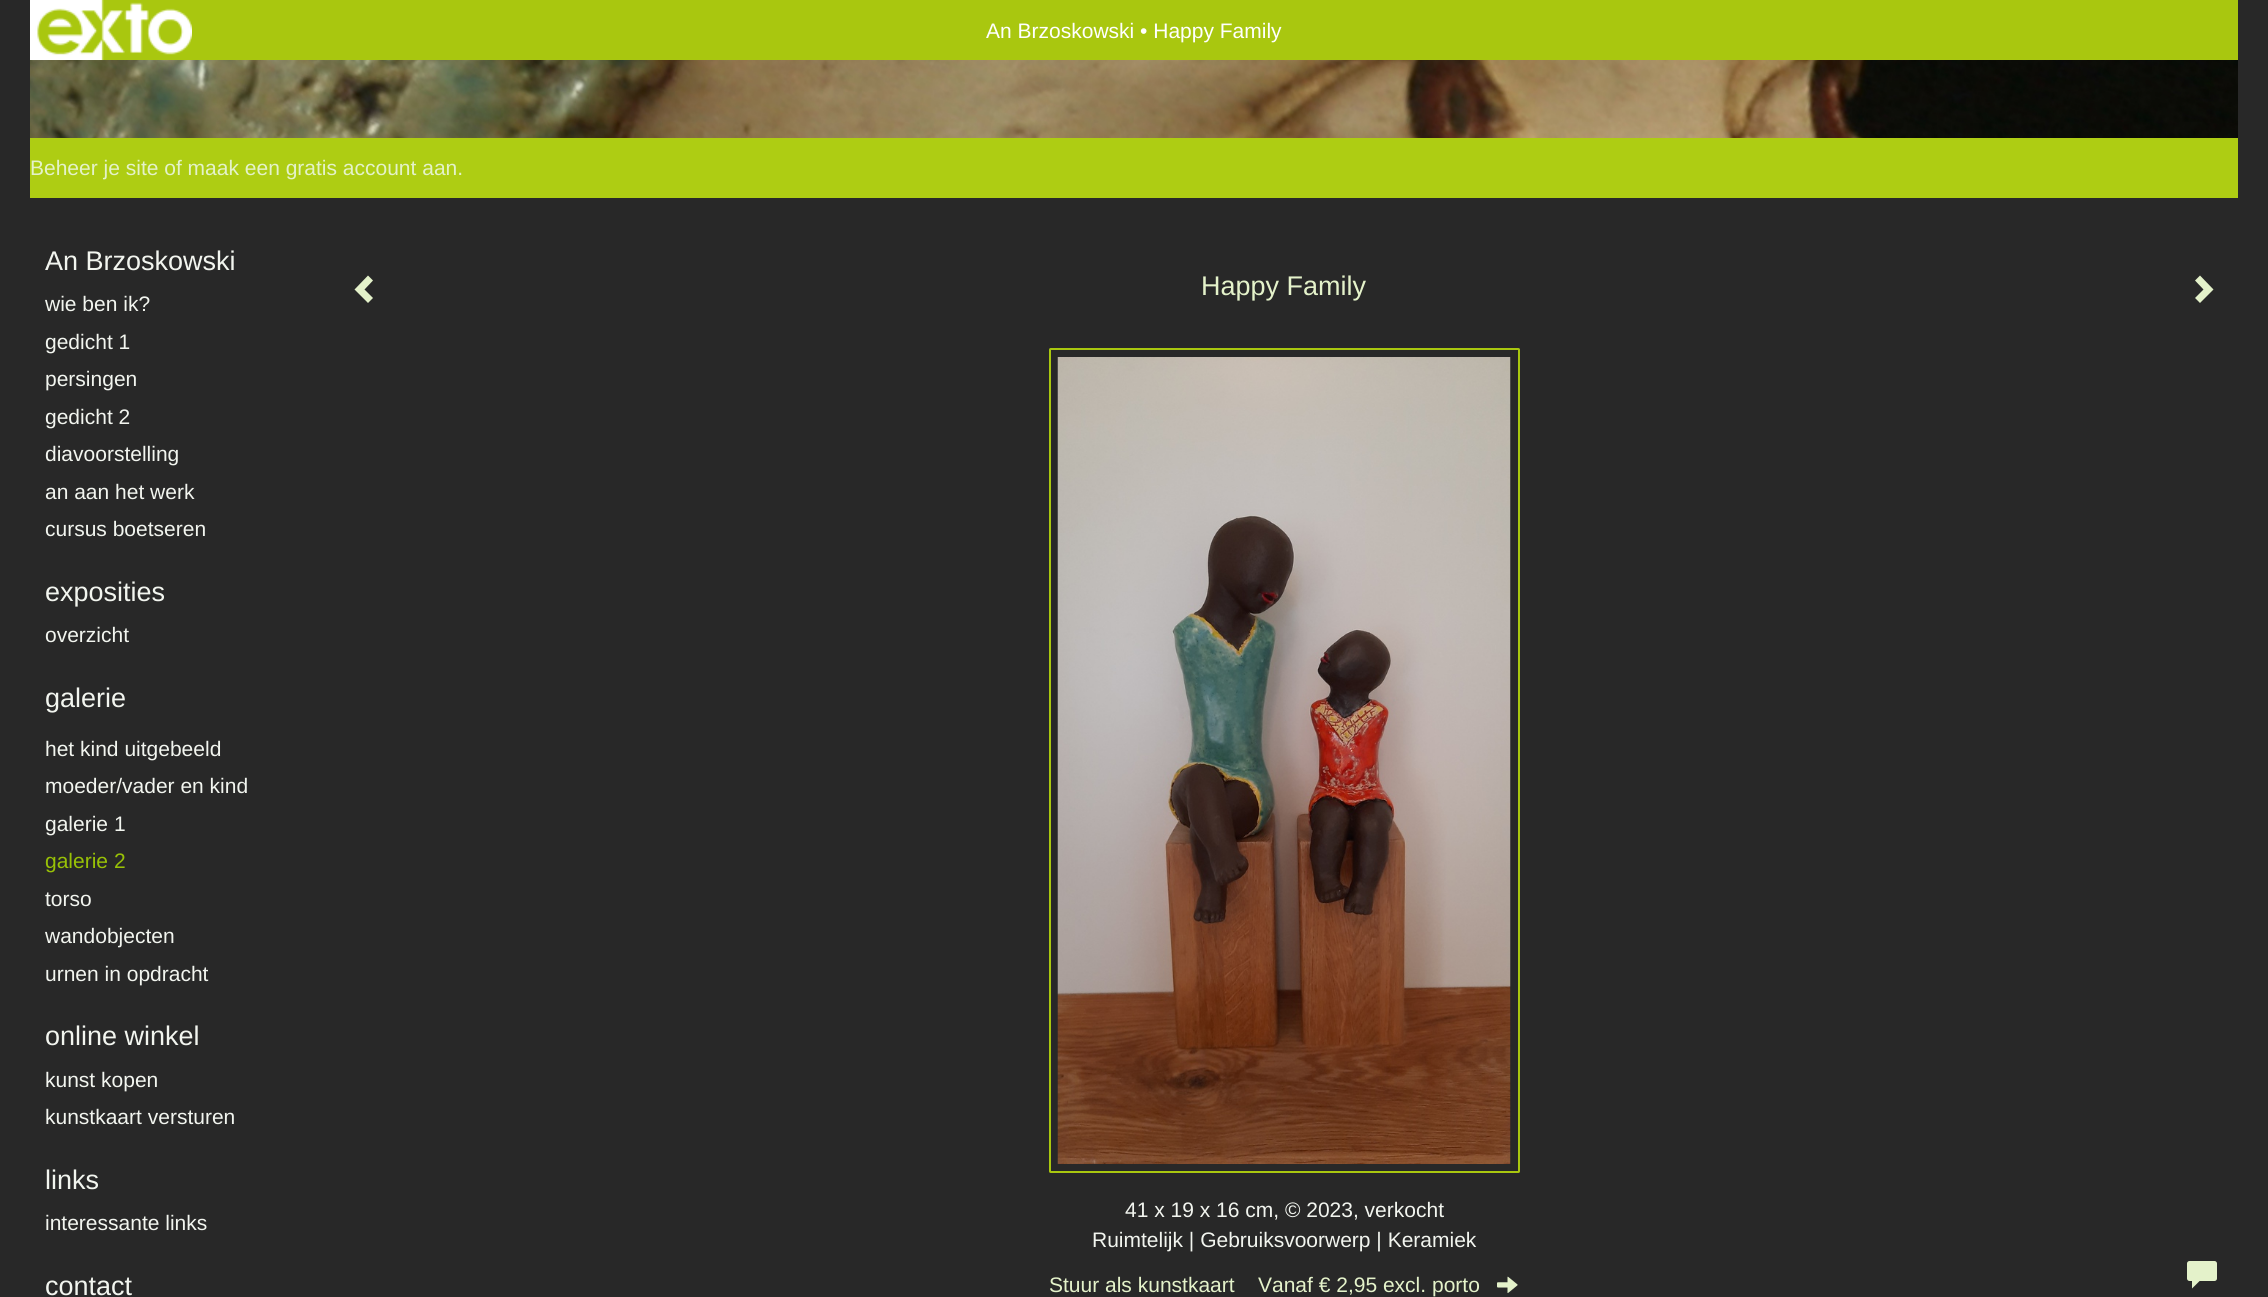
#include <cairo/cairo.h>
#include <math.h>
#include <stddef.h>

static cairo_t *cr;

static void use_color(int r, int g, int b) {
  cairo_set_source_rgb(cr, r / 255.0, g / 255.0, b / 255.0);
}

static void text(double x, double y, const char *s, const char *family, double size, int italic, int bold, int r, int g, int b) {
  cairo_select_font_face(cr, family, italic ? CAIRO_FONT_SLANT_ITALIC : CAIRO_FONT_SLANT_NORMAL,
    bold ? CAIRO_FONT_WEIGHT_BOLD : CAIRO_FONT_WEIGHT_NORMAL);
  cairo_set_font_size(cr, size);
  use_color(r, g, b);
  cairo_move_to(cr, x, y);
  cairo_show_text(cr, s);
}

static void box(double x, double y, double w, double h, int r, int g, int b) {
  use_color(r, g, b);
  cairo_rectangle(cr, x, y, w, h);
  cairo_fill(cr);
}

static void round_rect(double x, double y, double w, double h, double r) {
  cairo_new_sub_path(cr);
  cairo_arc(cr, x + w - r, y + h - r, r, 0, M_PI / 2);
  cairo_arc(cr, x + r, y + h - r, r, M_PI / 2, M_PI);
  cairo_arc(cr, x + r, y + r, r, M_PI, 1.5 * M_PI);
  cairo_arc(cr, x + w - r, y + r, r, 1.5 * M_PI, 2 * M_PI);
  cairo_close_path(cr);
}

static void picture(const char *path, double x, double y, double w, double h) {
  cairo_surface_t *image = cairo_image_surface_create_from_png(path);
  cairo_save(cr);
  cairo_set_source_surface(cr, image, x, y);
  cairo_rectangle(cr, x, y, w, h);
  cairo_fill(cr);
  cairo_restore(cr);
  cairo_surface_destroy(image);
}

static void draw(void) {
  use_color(40, 40, 40);
  cairo_paint(cr);
  box(37, 0, 2201, 60, 169, 199, 15);
  picture("img_01.png", 30, 0, 162, 60);
  picture("img_02.png", 30, 60, 2208, 78);
  box(30, 138, 2208, 60, 174, 205, 19);
  use_color(228, 242, 202);
  cairo_new_path(cr);
  cairo_move_to(cr, 373, 280.5);
  cairo_line_to(cr, 364.5, 289.5);
  cairo_line_to(cr, 373, 298);
  cairo_line_to(cr, 368, 303);
  cairo_line_to(cr, 354.5, 289.5);
  cairo_line_to(cr, 368, 275.5);
  cairo_close_path(cr);
  cairo_fill(cr);
  cairo_new_path(cr);
  cairo_move_to(cr, 2213.5, 289.5);
  cairo_line_to(cr, 2200, 303);
  cairo_line_to(cr, 2195, 298);
  cairo_line_to(cr, 2203.5, 289.5);
  cairo_line_to(cr, 2195, 280.5);
  cairo_line_to(cr, 2200, 275.5);
  cairo_close_path(cr);
  cairo_fill(cr);
  round_rect(1050, 349, 469, 823, 0.5);
  use_color(169, 199, 15);
  cairo_stroke(cr);
  picture("img_03.png", 1057, 357, 454, 807);
  picture("img_04.png", 1497, 1276, 21, 17);
  picture("img_05.png", 2187, 1261, 30, 28);
  text(986, 38, "An Brzoskowski • Happy Family", "Liberation Sans", 21, 0, 0, 255, 255, 255);
  text(30, 175, "Beheer je site of maak een gratis account aan.", "Liberation Sans", 21, 0, 0, 228, 242, 202);
  text(45, 270, "An Brzoskowski", "Liberation Sans", 27, 0, 0, 242, 245, 239);
  text(45, 311, "wie ben ik?", "Liberation Sans", 21, 0, 0, 242, 245, 239);
  text(45, 349, "gedicht 1", "Liberation Sans", 21, 0, 0, 242, 245, 239);
  text(45, 386, "persingen", "Liberation Sans", 21, 0, 0, 242, 245, 239);
  text(45, 424, "gedicht 2", "Liberation Sans", 21, 0, 0, 242, 245, 239);
  text(45, 461, "diavoorstelling", "Liberation Sans", 21, 0, 0, 242, 245, 239);
  text(45, 499, "an aan het werk", "Liberation Sans", 21, 0, 0, 242, 245, 239);
  text(45, 536, "cursus boetseren", "Liberation Sans", 21, 0, 0, 242, 245, 239);
  text(45, 601, "exposities", "Liberation Sans", 27, 0, 0, 242, 245, 239);
  text(45, 642, "overzicht", "Liberation Sans", 21, 0, 0, 242, 245, 239);
  text(45, 707, "galerie", "Liberation Sans", 27, 0, 0, 242, 245, 239);
  text(45, 756, "het kind uitgebeeld", "Liberation Sans", 21, 0, 0, 242, 245, 239);
  text(45, 793, "moeder/vader en kind", "Liberation Sans", 21, 0, 0, 242, 245, 239);
  text(45, 831, "galerie 1", "Liberation Sans", 21, 0, 0, 242, 245, 239);
  text(45, 868, "galerie 2", "Liberation Sans", 21, 0, 0, 152, 193, 6);
  text(45, 906, "torso", "Liberation Sans", 21, 0, 0, 242, 245, 239);
  text(45, 943, "wandobjecten", "Liberation Sans", 21, 0, 0, 242, 245, 239);
  text(45, 981, "urnen in opdracht", "Liberation Sans", 21, 0, 0, 242, 245, 239);
  text(45, 1045, "online winkel", "Liberation Sans", 27, 0, 0, 242, 245, 239);
  text(45, 1087, "kunst kopen", "Liberation Sans", 21, 0, 0, 242, 245, 239);
  text(45, 1124, "kunstkaart versturen", "Liberation Sans", 21, 0, 0, 242, 245, 239);
  text(45, 1189, "links", "Liberation Sans", 27, 0, 0, 242, 245, 239);
  text(45, 1230, "interessante links", "Liberation Sans", 21, 0, 0, 242, 245, 239);
  text(45, 1295, "contact", "Liberation Sans", 27, 0, 0, 242, 245, 239);
  text(1201, 295, "Happy Family", "Liberation Sans", 27, 0, 0, 228, 242, 202);
  text(1125, 1217, "41 x 19 x 16 cm, © 2023, verkocht", "Liberation Sans", 21, 0, 0, 242, 245, 239);
  text(1092, 1247, "Ruimtelijk | Gebruiksvoorwerp | Keramiek", "Liberation Sans", 21, 0, 0, 242, 245, 239);
  text(1049, 1292, "Stuur als kunstkaart", "Liberation Sans", 21, 0, 0, 228, 242, 202);
  text(1258, 1292, "Vanaf € 2,95 excl. porto", "Liberation Sans", 21, 0, 0, 228, 242, 202);
}

int main(void) {
  cairo_surface_t *surface = cairo_image_surface_create(CAIRO_FORMAT_RGB24, 2268, 1297);
  cr = cairo_create(surface);
  cairo_font_options_t *options = cairo_font_options_create();
  cairo_font_options_set_hint_metrics(options, CAIRO_HINT_METRICS_OFF);
  cairo_font_options_set_hint_style(options, CAIRO_HINT_STYLE_NONE);
  cairo_set_font_options(cr, options);
  cairo_set_miter_limit(cr, 4);
  draw();
  cairo_surface_write_to_png(surface, "out.png");
  cairo_font_options_destroy(options);
  cairo_destroy(cr);
  cairo_surface_destroy(surface);
  return 0;
}
